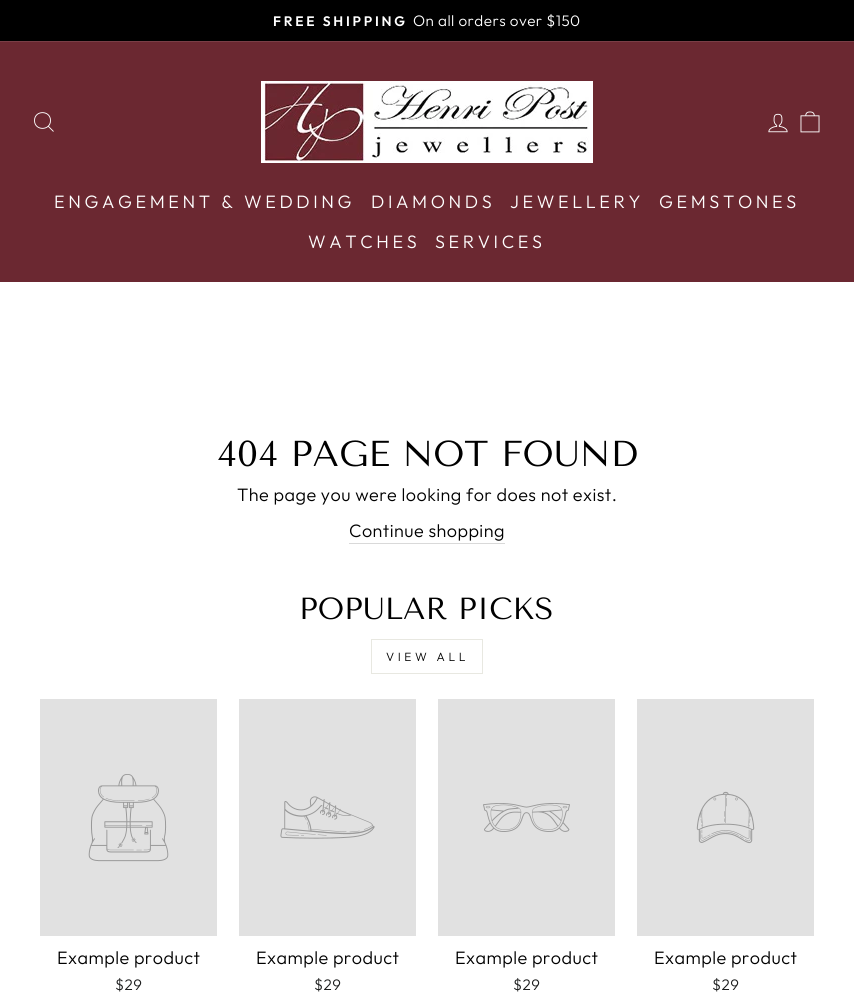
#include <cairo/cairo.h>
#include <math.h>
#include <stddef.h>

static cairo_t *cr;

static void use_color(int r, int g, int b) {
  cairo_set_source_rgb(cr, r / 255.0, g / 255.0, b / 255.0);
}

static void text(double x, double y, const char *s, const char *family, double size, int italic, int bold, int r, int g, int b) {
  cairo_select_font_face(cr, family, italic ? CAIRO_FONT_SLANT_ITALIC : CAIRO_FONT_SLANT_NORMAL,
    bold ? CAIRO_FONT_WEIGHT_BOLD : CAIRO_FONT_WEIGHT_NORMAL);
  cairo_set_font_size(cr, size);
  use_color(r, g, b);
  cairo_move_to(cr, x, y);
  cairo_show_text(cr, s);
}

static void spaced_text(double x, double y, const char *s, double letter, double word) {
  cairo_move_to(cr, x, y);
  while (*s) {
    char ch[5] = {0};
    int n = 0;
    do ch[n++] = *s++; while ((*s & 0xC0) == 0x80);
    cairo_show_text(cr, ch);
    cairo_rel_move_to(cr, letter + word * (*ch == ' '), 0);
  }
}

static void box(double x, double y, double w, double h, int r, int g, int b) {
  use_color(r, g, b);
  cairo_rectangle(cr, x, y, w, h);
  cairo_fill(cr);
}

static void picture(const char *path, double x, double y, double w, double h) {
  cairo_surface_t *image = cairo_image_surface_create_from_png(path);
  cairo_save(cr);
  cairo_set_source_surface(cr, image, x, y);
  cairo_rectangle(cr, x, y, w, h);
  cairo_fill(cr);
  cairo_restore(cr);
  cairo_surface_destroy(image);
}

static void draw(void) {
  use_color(255, 255, 255);
  cairo_paint(cr);
  box(0, 0, 854, 41, 0, 0, 0);
  box(0, 42, 854, 240, 107, 40, 49);
  box(0, 41, 854, 1, 122, 62, 70);
  cairo_new_path(cr);
  cairo_move_to(cr, 50.5, 120.5);
  cairo_curve_to(cr, 50.5, 131, 34.5, 131, 34.5, 120.5);
  cairo_curve_to(cr, 34.5, 110, 50.5, 110, 50.5, 120.5);
  cairo_close_path(cr);
  cairo_move_to(cr, 53.5, 131.5);
  cairo_line_to(cr, 48.5, 126.5);
  use_color(255, 255, 255);
  cairo_set_line_width(cr, 0.9);
  cairo_stroke(cr);
  picture("img_01.png", 261, 81, 332, 82);
  picture("img_02.png", 768, 113, 20, 20);
  picture("img_03.png", 800, 111, 20, 22);
  box(349, 543, 156, 1, 217, 217, 217);
  cairo_rectangle(cr, 371.5, 639.5, 111, 34);
  use_color(232, 232, 225);
  cairo_set_line_width(cr, 1);
  cairo_stroke(cr);
  box(40, 699, 177, 237, 225, 225, 225);
  picture("img_04.png", 88, 774, 81, 88);
  box(239, 699, 177, 237, 225, 225, 225);
  picture("img_05.png", 280, 796, 95, 43);
  box(438, 699, 177, 237, 225, 225, 225);
  picture("img_06.png", 483, 803, 87, 29);
  box(637, 699, 177, 237, 225, 225, 225);
  picture("img_07.png", 696, 791, 59, 53);
  cairo_select_font_face(cr, "Outfit SemiBold", CAIRO_FONT_SLANT_NORMAL, CAIRO_FONT_WEIGHT_NORMAL);
  cairo_set_font_size(cr, 13.75);
  use_color(255, 255, 255);
  spaced_text(273, 26, "FREE SHIPPING", 2.75, 0);
  cairo_select_font_face(cr, "Outfit Light", CAIRO_FONT_SLANT_NORMAL, CAIRO_FONT_WEIGHT_NORMAL);
  cairo_set_font_size(cr, 15.25);
  spaced_text(413, 26, "On all orders over $150", 0.45, 0);
  cairo_set_font_size(cr, 18);
  spaced_text(54, 208, "ENGAGEMENT & WEDDING", 3.6, 0);
  spaced_text(371, 208, "DIAMONDS", 3.6, 0);
  spaced_text(510, 208, "JEWELLERY", 3.6, 0);
  spaced_text(659, 208, "GEMSTONES", 3.6, 0);
  spaced_text(308, 248, "WATCHES", 3.6, 0);
  spaced_text(435, 248, "SERVICES", 3.6, 0);
  text(217, 466, "404 PAGE NOT FOUND", "Tenor Sans", 36, 0, 0, 0, 0, 0);
  cairo_select_font_face(cr, "Outfit Light", CAIRO_FONT_SLANT_NORMAL, CAIRO_FONT_WEIGHT_NORMAL);
  cairo_set_font_size(cr, 18);
  spaced_text(237, 501, "The page you were looking for does not exist.", 0.45, 0);
  spaced_text(349, 537, "Continue shopping", 0.45, 0);
  text(299, 619, "POPULAR PICKS", "Tenor Sans", 30.5, 0, 0, 0, 0, 0);
  cairo_select_font_face(cr, "Outfit Light", CAIRO_FONT_SLANT_NORMAL, CAIRO_FONT_WEIGHT_NORMAL);
  cairo_set_font_size(cr, 12);
  spaced_text(386, 661, "VIEW ALL", 3.6, 0);
  cairo_set_font_size(cr, 18);
  spaced_text(57, 964, "Example product", 0.45, 0);
  cairo_set_font_size(cr, 15.25);
  use_color(28, 29, 29);
  spaced_text(115, 990, "$29", 0.45, 0);
  cairo_set_font_size(cr, 18);
  use_color(0, 0, 0);
  spaced_text(256, 964, "Example product", 0.45, 0);
  cairo_set_font_size(cr, 15.25);
  use_color(28, 29, 29);
  spaced_text(314, 990, "$29", 0.45, 0);
  cairo_set_font_size(cr, 18);
  use_color(0, 0, 0);
  spaced_text(455, 964, "Example product", 0.45, 0);
  cairo_set_font_size(cr, 15.25);
  use_color(28, 29, 29);
  spaced_text(513, 990, "$29", 0.45, 0);
  cairo_set_font_size(cr, 18);
  use_color(0, 0, 0);
  spaced_text(654, 964, "Example product", 0.45, 0);
  cairo_set_font_size(cr, 15.25);
  use_color(28, 29, 29);
  spaced_text(712, 990, "$29", 0.45, 0);
}

int main(void) {
  cairo_surface_t *surface = cairo_image_surface_create(CAIRO_FORMAT_RGB24, 854, 1001);
  cr = cairo_create(surface);
  cairo_font_options_t *options = cairo_font_options_create();
  cairo_font_options_set_hint_metrics(options, CAIRO_HINT_METRICS_OFF);
  cairo_font_options_set_hint_style(options, CAIRO_HINT_STYLE_NONE);
  cairo_set_font_options(cr, options);
  cairo_set_miter_limit(cr, 4);
  draw();
  cairo_surface_write_to_png(surface, "out.png");
  cairo_font_options_destroy(options);
  cairo_destroy(cr);
  cairo_surface_destroy(surface);
  return 0;
}
